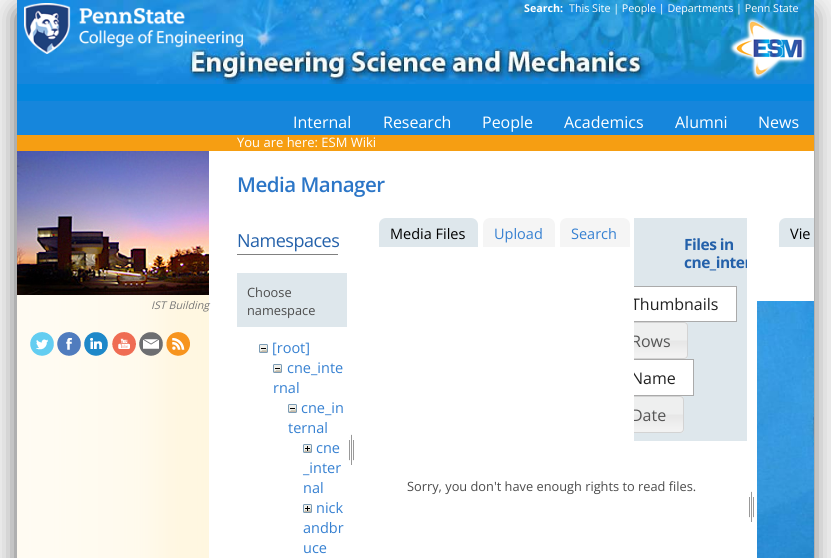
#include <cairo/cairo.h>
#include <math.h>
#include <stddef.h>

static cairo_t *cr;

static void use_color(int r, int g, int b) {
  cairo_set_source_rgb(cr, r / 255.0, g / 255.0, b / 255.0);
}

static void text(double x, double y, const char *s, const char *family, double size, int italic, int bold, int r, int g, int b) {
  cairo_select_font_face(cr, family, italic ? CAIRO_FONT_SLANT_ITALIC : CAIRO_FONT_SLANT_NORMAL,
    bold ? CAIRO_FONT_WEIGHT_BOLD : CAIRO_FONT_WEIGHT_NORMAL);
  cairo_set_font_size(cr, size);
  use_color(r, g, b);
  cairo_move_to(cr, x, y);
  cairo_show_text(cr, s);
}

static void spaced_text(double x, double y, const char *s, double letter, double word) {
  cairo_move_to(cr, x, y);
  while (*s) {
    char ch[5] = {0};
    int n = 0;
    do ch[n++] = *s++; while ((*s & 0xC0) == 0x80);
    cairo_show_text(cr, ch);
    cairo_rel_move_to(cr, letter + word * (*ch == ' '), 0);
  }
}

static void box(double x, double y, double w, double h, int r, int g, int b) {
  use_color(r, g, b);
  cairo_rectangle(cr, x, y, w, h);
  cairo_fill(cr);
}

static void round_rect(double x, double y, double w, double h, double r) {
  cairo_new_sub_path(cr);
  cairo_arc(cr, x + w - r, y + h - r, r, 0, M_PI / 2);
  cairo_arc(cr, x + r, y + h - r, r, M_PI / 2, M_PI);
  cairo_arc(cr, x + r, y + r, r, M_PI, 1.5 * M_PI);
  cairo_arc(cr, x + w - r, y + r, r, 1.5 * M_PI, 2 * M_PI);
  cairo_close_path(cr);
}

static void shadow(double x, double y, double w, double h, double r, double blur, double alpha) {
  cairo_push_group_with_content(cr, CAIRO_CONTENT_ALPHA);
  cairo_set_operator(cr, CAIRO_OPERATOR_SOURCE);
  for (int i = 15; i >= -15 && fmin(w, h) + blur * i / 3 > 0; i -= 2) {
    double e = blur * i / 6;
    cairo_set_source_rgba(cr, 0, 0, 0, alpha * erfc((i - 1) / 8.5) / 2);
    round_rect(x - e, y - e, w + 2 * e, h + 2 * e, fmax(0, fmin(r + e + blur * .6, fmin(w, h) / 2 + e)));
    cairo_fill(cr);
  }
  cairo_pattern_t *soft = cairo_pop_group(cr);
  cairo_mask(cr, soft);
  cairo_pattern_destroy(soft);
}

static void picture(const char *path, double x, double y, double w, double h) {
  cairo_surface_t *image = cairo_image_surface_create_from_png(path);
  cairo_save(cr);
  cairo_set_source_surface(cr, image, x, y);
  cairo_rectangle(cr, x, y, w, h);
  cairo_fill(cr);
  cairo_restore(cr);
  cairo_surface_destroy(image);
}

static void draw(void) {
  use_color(241, 241, 241);
  cairo_paint(cr);
  use_color(0, 0, 0);
  shadow(20, 14, 789, 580, 0, 12, 0.75);
  box(209, 151, 605, 407, 255, 255, 255);
  box(17, 84, 797, 17, 4, 134, 221);
  picture("img_01.png", 17, 0, 797, 84);
  picture("img_02.png", 24, 3, 219, 51);
  picture("img_03.png", 729, 17, 78, 63);
  box(17, 101, 797, 34, 22, 134, 220);
  box(17, 135, 797, 16, 246, 158, 18);
  picture("img_04.png", 17, 295, 192, 263);
  picture("img_05.png", 17, 151, 192, 144);
  picture("img_06.png", 30, 332, 24, 24);
  picture("img_07.png", 57, 332, 24, 24);
  picture("img_08.png", 84, 332, 24, 24);
  picture("img_09.png", 112, 332, 24, 24);
  picture("img_10.png", 139, 332, 24, 24);
  picture("img_11.png", 166, 332, 24, 24);
  box(237, 254, 101, 1, 128, 128, 128);
  box(237, 273, 110, 54, 222, 231, 236);
  picture("img_12.png", 259, 344, 9, 9);
  picture("img_12.png", 273, 364, 9, 9);
  picture("img_12.png", 288, 404, 9, 9);
  picture("img_13.png", 303, 444, 9, 9);
  picture("img_13.png", 303, 504, 9, 9);
  picture("img_14.png", 349, 434, 5, 31);
  cairo_new_path(cr);
  cairo_move_to(cr, 386, 218);
  cairo_line_to(cr, 471, 218);
  cairo_curve_to(cr, 475, 218, 478, 221, 478, 225);
  cairo_line_to(cr, 478, 247);
  cairo_line_to(cr, 379, 247);
  cairo_line_to(cr, 379, 225);
  cairo_curve_to(cr, 379, 221, 382, 218, 386, 218);
  cairo_close_path(cr);
  cairo_fill(cr);
  use_color(245, 245, 245);
  cairo_new_path(cr);
  cairo_move_to(cr, 490, 218);
  cairo_line_to(cr, 548, 218);
  cairo_curve_to(cr, 552, 218, 555, 221, 555, 225);
  cairo_line_to(cr, 555, 247);
  cairo_line_to(cr, 483, 247);
  cairo_line_to(cr, 483, 225);
  cairo_curve_to(cr, 483, 221, 486, 218, 490, 218);
  cairo_close_path(cr);
  cairo_fill(cr);
  cairo_new_path(cr);
  cairo_move_to(cr, 567, 218);
  cairo_line_to(cr, 623, 218);
  cairo_curve_to(cr, 627, 218, 630, 221, 630, 225);
  cairo_line_to(cr, 630, 247);
  cairo_line_to(cr, 560, 247);
  cairo_line_to(cr, 560, 225);
  cairo_curve_to(cr, 560, 221, 563, 218, 567, 218);
  cairo_close_path(cr);
  cairo_fill(cr);
  box(634, 218, 113, 223, 222, 231, 236);
  box(634, 287, 102, 34, 255, 255, 255);
  cairo_save(cr);
  cairo_rectangle(cr, 634, 218, 113, 223);
  cairo_clip(cr);
  cairo_new_path(cr);
  cairo_move_to(cr, 618, 286.5);
  cairo_line_to(cr, 736.5, 286.5);
  cairo_line_to(cr, 736.5, 321.5);
  cairo_line_to(cr, 618, 321.5);
  cairo_curve_to(cr, 616, 321.5, 614.5, 320, 614.5, 318);
  cairo_line_to(cr, 614.5, 290);
  cairo_curve_to(cr, 614.5, 288, 616, 286.5, 618, 286.5);
  cairo_close_path(cr);
  use_color(170, 170, 170);
  cairo_set_line_width(cr, 1);
  cairo_stroke(cr);
  cairo_restore(cr);
  picture("img_15.png", 634, 322, 54, 37);
  cairo_save(cr);
  cairo_rectangle(cr, 634, 218, 113, 223);
  cairo_clip(cr);
  cairo_new_path(cr);
  cairo_move_to(cr, 614.5, 322.5);
  cairo_line_to(cr, 684, 322.5);
  cairo_curve_to(cr, 686, 322.5, 687.5, 324, 687.5, 326);
  cairo_line_to(cr, 687.5, 355);
  cairo_curve_to(cr, 687.5, 357, 686, 358.5, 684, 358.5);
  cairo_line_to(cr, 614.5, 358.5);
  cairo_close_path(cr);
  use_color(211, 211, 211);
  cairo_set_line_width(cr, 1);
  cairo_stroke(cr);
  cairo_restore(cr);
  box(634, 360, 59, 35, 255, 255, 255);
  cairo_save(cr);
  cairo_rectangle(cr, 634, 218, 113, 223);
  cairo_clip(cr);
  cairo_new_path(cr);
  cairo_move_to(cr, 618, 359.5);
  cairo_line_to(cr, 693.5, 359.5);
  cairo_line_to(cr, 693.5, 395.5);
  cairo_line_to(cr, 618, 395.5);
  cairo_curve_to(cr, 616, 395.5, 614.5, 394, 614.5, 392);
  cairo_line_to(cr, 614.5, 363);
  cairo_curve_to(cr, 614.5, 361, 616, 359.5, 618, 359.5);
  cairo_close_path(cr);
  use_color(170, 170, 170);
  cairo_set_line_width(cr, 1);
  cairo_stroke(cr);
  cairo_restore(cr);
  picture("img_16.png", 634, 396, 50, 37);
  cairo_save(cr);
  cairo_rectangle(cr, 634, 218, 113, 223);
  cairo_clip(cr);
  cairo_new_path(cr);
  cairo_move_to(cr, 614.5, 396.5);
  cairo_line_to(cr, 680, 396.5);
  cairo_curve_to(cr, 682, 396.5, 683.5, 398, 683.5, 400);
  cairo_line_to(cr, 683.5, 429);
  cairo_curve_to(cr, 683.5, 431, 682, 432.5, 680, 432.5);
  cairo_line_to(cr, 614.5, 432.5);
  cairo_close_path(cr);
  use_color(211, 211, 211);
  cairo_set_line_width(cr, 1);
  cairo_stroke(cr);
  cairo_restore(cr);
  picture("img_14.png", 749, 491, 5, 31);
  use_color(222, 231, 236);
  cairo_new_path(cr);
  cairo_move_to(cr, 786, 218);
  cairo_line_to(cr, 814, 218);
  cairo_line_to(cr, 814, 247);
  cairo_line_to(cr, 779, 247);
  cairo_line_to(cr, 779, 225);
  cairo_curve_to(cr, 779, 221, 782, 218, 786, 218);
  cairo_close_path(cr);
  cairo_fill(cr);
  picture("img_17.png", 757, 301, 57, 257);
  text(524, 12, "Search:", "Open Sans", 10.7, 0, 1, 255, 255, 255);
  text(569, 12, "This Site | People | Departments | Penn State", "Open Sans", 10.7, 0, 0, 255, 255, 255);
  text(293, 128, "Internal", "Open Sans", 16, 0, 0, 255, 255, 255);
  text(383, 128, "Research", "Open Sans", 16, 0, 0, 255, 255, 255);
  text(482, 128, "People", "Open Sans", 16, 0, 0, 255, 255, 255);
  text(564, 128, "Academics", "Open Sans", 16, 0, 0, 255, 255, 255);
  text(675, 128, "Alumni", "Open Sans", 16, 0, 0, 255, 255, 255);
  text(758, 128, "News", "Open Sans", 16, 0, 0, 255, 255, 255);
  text(237, 147, "You are here: ESM Wiki", "Open Sans", 13, 0, 0, 255, 255, 255);
  text(151, 309, "IST Building", "Open Sans", 10.7, 1, 0, 119, 119, 119);
  cairo_select_font_face(cr, "Open Sans SemiBold", CAIRO_FONT_SLANT_NORMAL, CAIRO_FONT_WEIGHT_NORMAL);
  cairo_set_font_size(cr, 20.5);
  use_color(44, 118, 199);
  spaced_text(237, 192, "Media Manager", -0.5, 0);
  cairo_select_font_face(cr, "Open Sans", CAIRO_FONT_SLANT_NORMAL, CAIRO_FONT_WEIGHT_NORMAL);
  cairo_set_font_size(cr, 18);
  use_color(36, 97, 170);
  spaced_text(237, 247, "Namespaces", -0.5, 0);
  text(247, 297, "Choose", "Open Sans", 12.8, 0, 0, 76, 76, 76);
  text(247, 315, "namespace", "Open Sans", 12.8, 0, 0, 76, 76, 76);
  text(272, 353, "[root]", "Open Sans", 14.5, 0, 0, 53, 128, 209);
  text(287, 373, "cne_inte", "Open Sans", 14.5, 0, 0, 53, 128, 209);
  text(273, 393, "rnal", "Open Sans", 14.5, 0, 0, 53, 128, 209);
  text(301, 413, "cne_in", "Open Sans", 14.5, 0, 0, 53, 128, 209);
  text(288, 433, "ternal", "Open Sans", 14.5, 0, 0, 53, 128, 209);
  text(316, 453, "cne", "Open Sans", 14.5, 0, 0, 53, 128, 209);
  text(303, 473, "_inter", "Open Sans", 14.5, 0, 0, 53, 128, 209);
  text(303, 493, "nal", "Open Sans", 14.5, 0, 0, 53, 128, 209);
  text(316, 513, "nick", "Open Sans", 14.5, 0, 0, 53, 128, 209);
  text(303, 533, "andbr", "Open Sans", 14.5, 0, 0, 53, 128, 209);
  text(303, 553, "uce", "Open Sans", 14.5, 0, 0, 53, 128, 209);
  text(390, 239, "Media Files", "Open Sans", 14.5, 0, 0, 0, 0, 0);
  text(494, 239, "Upload", "Open Sans", 14.5, 0, 0, 53, 128, 209);
  text(571, 239, "Search", "Open Sans", 14.5, 0, 0, 53, 128, 209);
  cairo_select_font_face(cr, "Open Sans", CAIRO_FONT_SLANT_NORMAL, CAIRO_FONT_WEIGHT_BOLD);
  cairo_set_font_size(cr, 15.5);
  use_color(36, 97, 170);
  spaced_text(684, 250, "Files in", -0.5, 0);
  cairo_save(cr);
  cairo_rectangle(cr, 634, 218, 113, 223);
  cairo_clip(cr);
  spaced_text(684, 268, "cne_inter", -0.5, 0);
  text(631, 310, "Thumbnails", "Open Sans", 16, 0, 0, 33, 33, 33);
  text(631, 347, "Rows", "Open Sans", 16, 0, 0, 85, 85, 85);
  text(631, 384, "Name", "Open Sans", 16, 0, 0, 33, 33, 33);
  text(631, 421, "Date", "Open Sans", 16, 0, 0, 85, 85, 85);
  cairo_restore(cr);
  text(407, 491, "Sorry, you don't have enough rights to read files.", "Open Sans", 12.8, 0, 0, 76, 76, 76);
  text(790, 239, "Vie", "Open Sans", 14.5, 0, 0, 0, 0, 0);
}

int main(void) {
  cairo_surface_t *surface = cairo_image_surface_create(CAIRO_FORMAT_RGB24, 831, 558);
  cr = cairo_create(surface);
  cairo_font_options_t *options = cairo_font_options_create();
  cairo_font_options_set_hint_metrics(options, CAIRO_HINT_METRICS_OFF);
  cairo_font_options_set_hint_style(options, CAIRO_HINT_STYLE_NONE);
  cairo_set_font_options(cr, options);
  cairo_set_miter_limit(cr, 4);
  draw();
  cairo_surface_write_to_png(surface, "out.png");
  cairo_font_options_destroy(options);
  cairo_destroy(cr);
  cairo_surface_destroy(surface);
  return 0;
}
